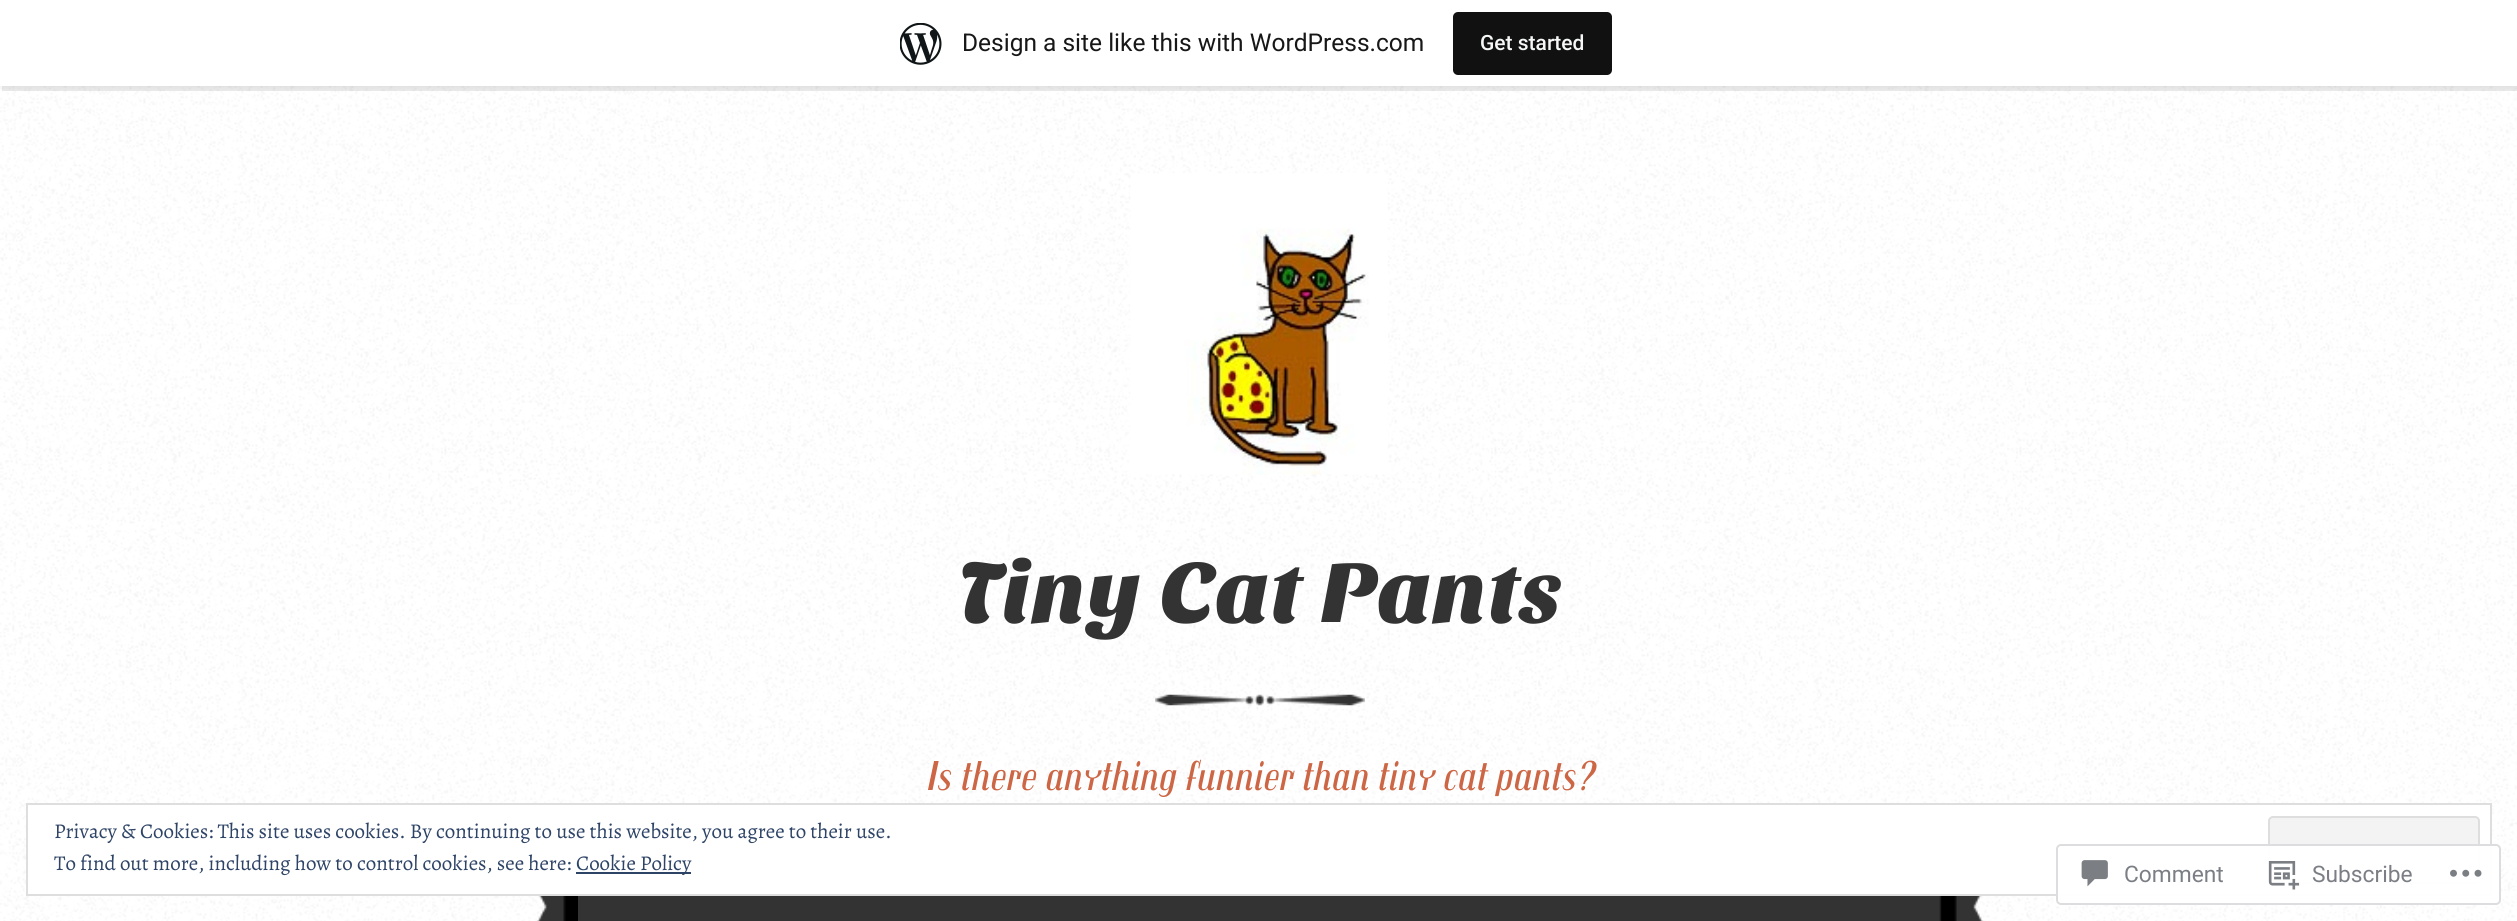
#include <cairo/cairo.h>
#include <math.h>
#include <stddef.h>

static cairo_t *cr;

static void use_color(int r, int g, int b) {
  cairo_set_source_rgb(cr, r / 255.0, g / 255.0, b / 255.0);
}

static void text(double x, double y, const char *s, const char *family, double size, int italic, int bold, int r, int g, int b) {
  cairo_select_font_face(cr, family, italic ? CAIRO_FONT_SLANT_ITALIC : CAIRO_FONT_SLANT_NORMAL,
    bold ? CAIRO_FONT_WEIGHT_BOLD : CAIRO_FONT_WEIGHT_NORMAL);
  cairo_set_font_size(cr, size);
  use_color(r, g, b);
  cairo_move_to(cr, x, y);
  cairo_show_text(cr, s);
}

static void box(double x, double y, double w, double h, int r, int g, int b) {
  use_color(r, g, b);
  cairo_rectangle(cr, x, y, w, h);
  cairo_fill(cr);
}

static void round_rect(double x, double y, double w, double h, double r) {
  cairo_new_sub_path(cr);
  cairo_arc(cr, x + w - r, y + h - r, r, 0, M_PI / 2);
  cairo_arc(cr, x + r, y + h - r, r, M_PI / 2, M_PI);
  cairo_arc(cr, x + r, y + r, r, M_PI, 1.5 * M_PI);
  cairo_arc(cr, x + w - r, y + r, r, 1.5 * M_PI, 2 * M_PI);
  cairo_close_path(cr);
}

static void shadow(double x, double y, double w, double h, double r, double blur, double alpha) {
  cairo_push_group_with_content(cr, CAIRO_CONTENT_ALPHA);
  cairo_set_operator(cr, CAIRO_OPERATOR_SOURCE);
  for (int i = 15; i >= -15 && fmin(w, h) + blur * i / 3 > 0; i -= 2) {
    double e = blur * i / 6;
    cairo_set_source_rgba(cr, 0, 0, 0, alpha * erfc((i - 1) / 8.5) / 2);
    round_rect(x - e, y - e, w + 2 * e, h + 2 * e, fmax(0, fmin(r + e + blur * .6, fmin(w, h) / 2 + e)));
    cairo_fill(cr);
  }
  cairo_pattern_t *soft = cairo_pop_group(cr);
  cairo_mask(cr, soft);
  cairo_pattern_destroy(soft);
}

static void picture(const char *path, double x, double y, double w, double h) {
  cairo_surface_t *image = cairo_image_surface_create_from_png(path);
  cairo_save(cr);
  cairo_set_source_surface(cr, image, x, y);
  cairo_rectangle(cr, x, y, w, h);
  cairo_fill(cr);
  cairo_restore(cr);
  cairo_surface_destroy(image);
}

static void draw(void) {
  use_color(255, 255, 255);
  cairo_paint(cr);
  picture("img_01.png", 0, 86, 2517, 835);
  use_color(0, 0, 0);
  shadow(0, 2, 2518, 86, 0, 2, 0.05);
  cairo_set_source_rgba(cr, 0, 0, 0, 0.08);
  cairo_new_path(cr);
  cairo_move_to(cr, 2, 86);
  cairo_line_to(cr, 2, 91);
  cairo_line_to(cr, 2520, 91);
  cairo_line_to(cr, 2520, 5);
  cairo_line_to(cr, 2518, 5);
  cairo_line_to(cr, 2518, 86);
  cairo_close_path(cr);
  cairo_fill(cr);
  box(0, 0, 2517, 86, 255, 255, 255);
  picture("img_02.png", 900, 23, 42, 42);
  use_color(17, 17, 17);
  round_rect(1453, 12, 159, 63, 5);
  cairo_fill(cr);
  picture("img_03.png", 1130, 173, 258, 302);
  picture("img_04.png", 1155, 694, 210, 12);
  picture("img_05.png", 537, 896, 41, 25);
  box(578, 896, 1361, 25, 51, 51, 51);
  picture("img_06.png", 1939, 896, 45, 25);
  use_color(255, 255, 255);
  cairo_rectangle(cr, 27, 804, 2464, 91);
  cairo_fill_preserve(cr);
  use_color(222, 222, 222);
  cairo_stroke(cr);
  use_color(243, 243, 243);
  round_rect(2269, 817, 210, 66, 4);
  cairo_fill_preserve(cr);
  use_color(222, 222, 222);
  cairo_stroke(cr);
  box(576, 872, 115, 2, 46, 68, 103);
  cairo_set_source_rgba(cr, 1, 1, 1, 0.98);
  round_rect(2056, 844, 445, 61, 5);
  cairo_fill(cr);
  round_rect(2057, 845, 443, 59, 4);
  cairo_set_source_rgba(cr, 0.863, 0.863, 0.871, 0.98);
  cairo_stroke(cr);
  picture("img_07.png", 2081, 860, 27, 27);
  picture("img_08.png", 2268, 861, 32, 29);
  picture("img_09.png", 2450, 869, 32, 8);
  text(962, 51, "Design a site like this with WordPress.com", "Roboto", 24.5, 0, 0, 23, 23, 23);
  text(1480, 50, "Get started", "Roboto Medium", 21, 0, 0, 246, 247, 247);
  text(957, 622, "Tiny Cat Pants", "Sansita One", 88.25, 0, 0, 51, 51, 51);
  text(925, 790, "Is there anything funnier than tiny cat pants?", "Trochut", 42, 1, 0, 204, 102, 68);
  text(54, 838, "Privacy & Cookies: This site uses cookies. By continuing to use this website, you agree to their use.", "Alegreya", 21, 0, 0, 46, 68, 103);
  text(54, 870, "To find out more, including how to control cookies, see here:", "Alegreya", 21, 0, 0, 46, 68, 103);
  text(576, 870, "Cookie Policy", "Alegreya", 21, 0, 0, 46, 68, 103);
  text(2124, 882, "Comment", "Roboto", 22.75, 0, 0, 123, 127, 133);
  text(2312, 882, "Subscribe", "Roboto", 22.75, 0, 0, 123, 127, 133);
}

int main(void) {
  cairo_surface_t *surface = cairo_image_surface_create(CAIRO_FORMAT_RGB24, 2517, 921);
  cr = cairo_create(surface);
  cairo_font_options_t *options = cairo_font_options_create();
  cairo_font_options_set_hint_metrics(options, CAIRO_HINT_METRICS_OFF);
  cairo_font_options_set_hint_style(options, CAIRO_HINT_STYLE_NONE);
  cairo_set_font_options(cr, options);
  cairo_set_miter_limit(cr, 4);
  draw();
  cairo_surface_write_to_png(surface, "out.png");
  cairo_font_options_destroy(options);
  cairo_destroy(cr);
  cairo_surface_destroy(surface);
  return 0;
}
